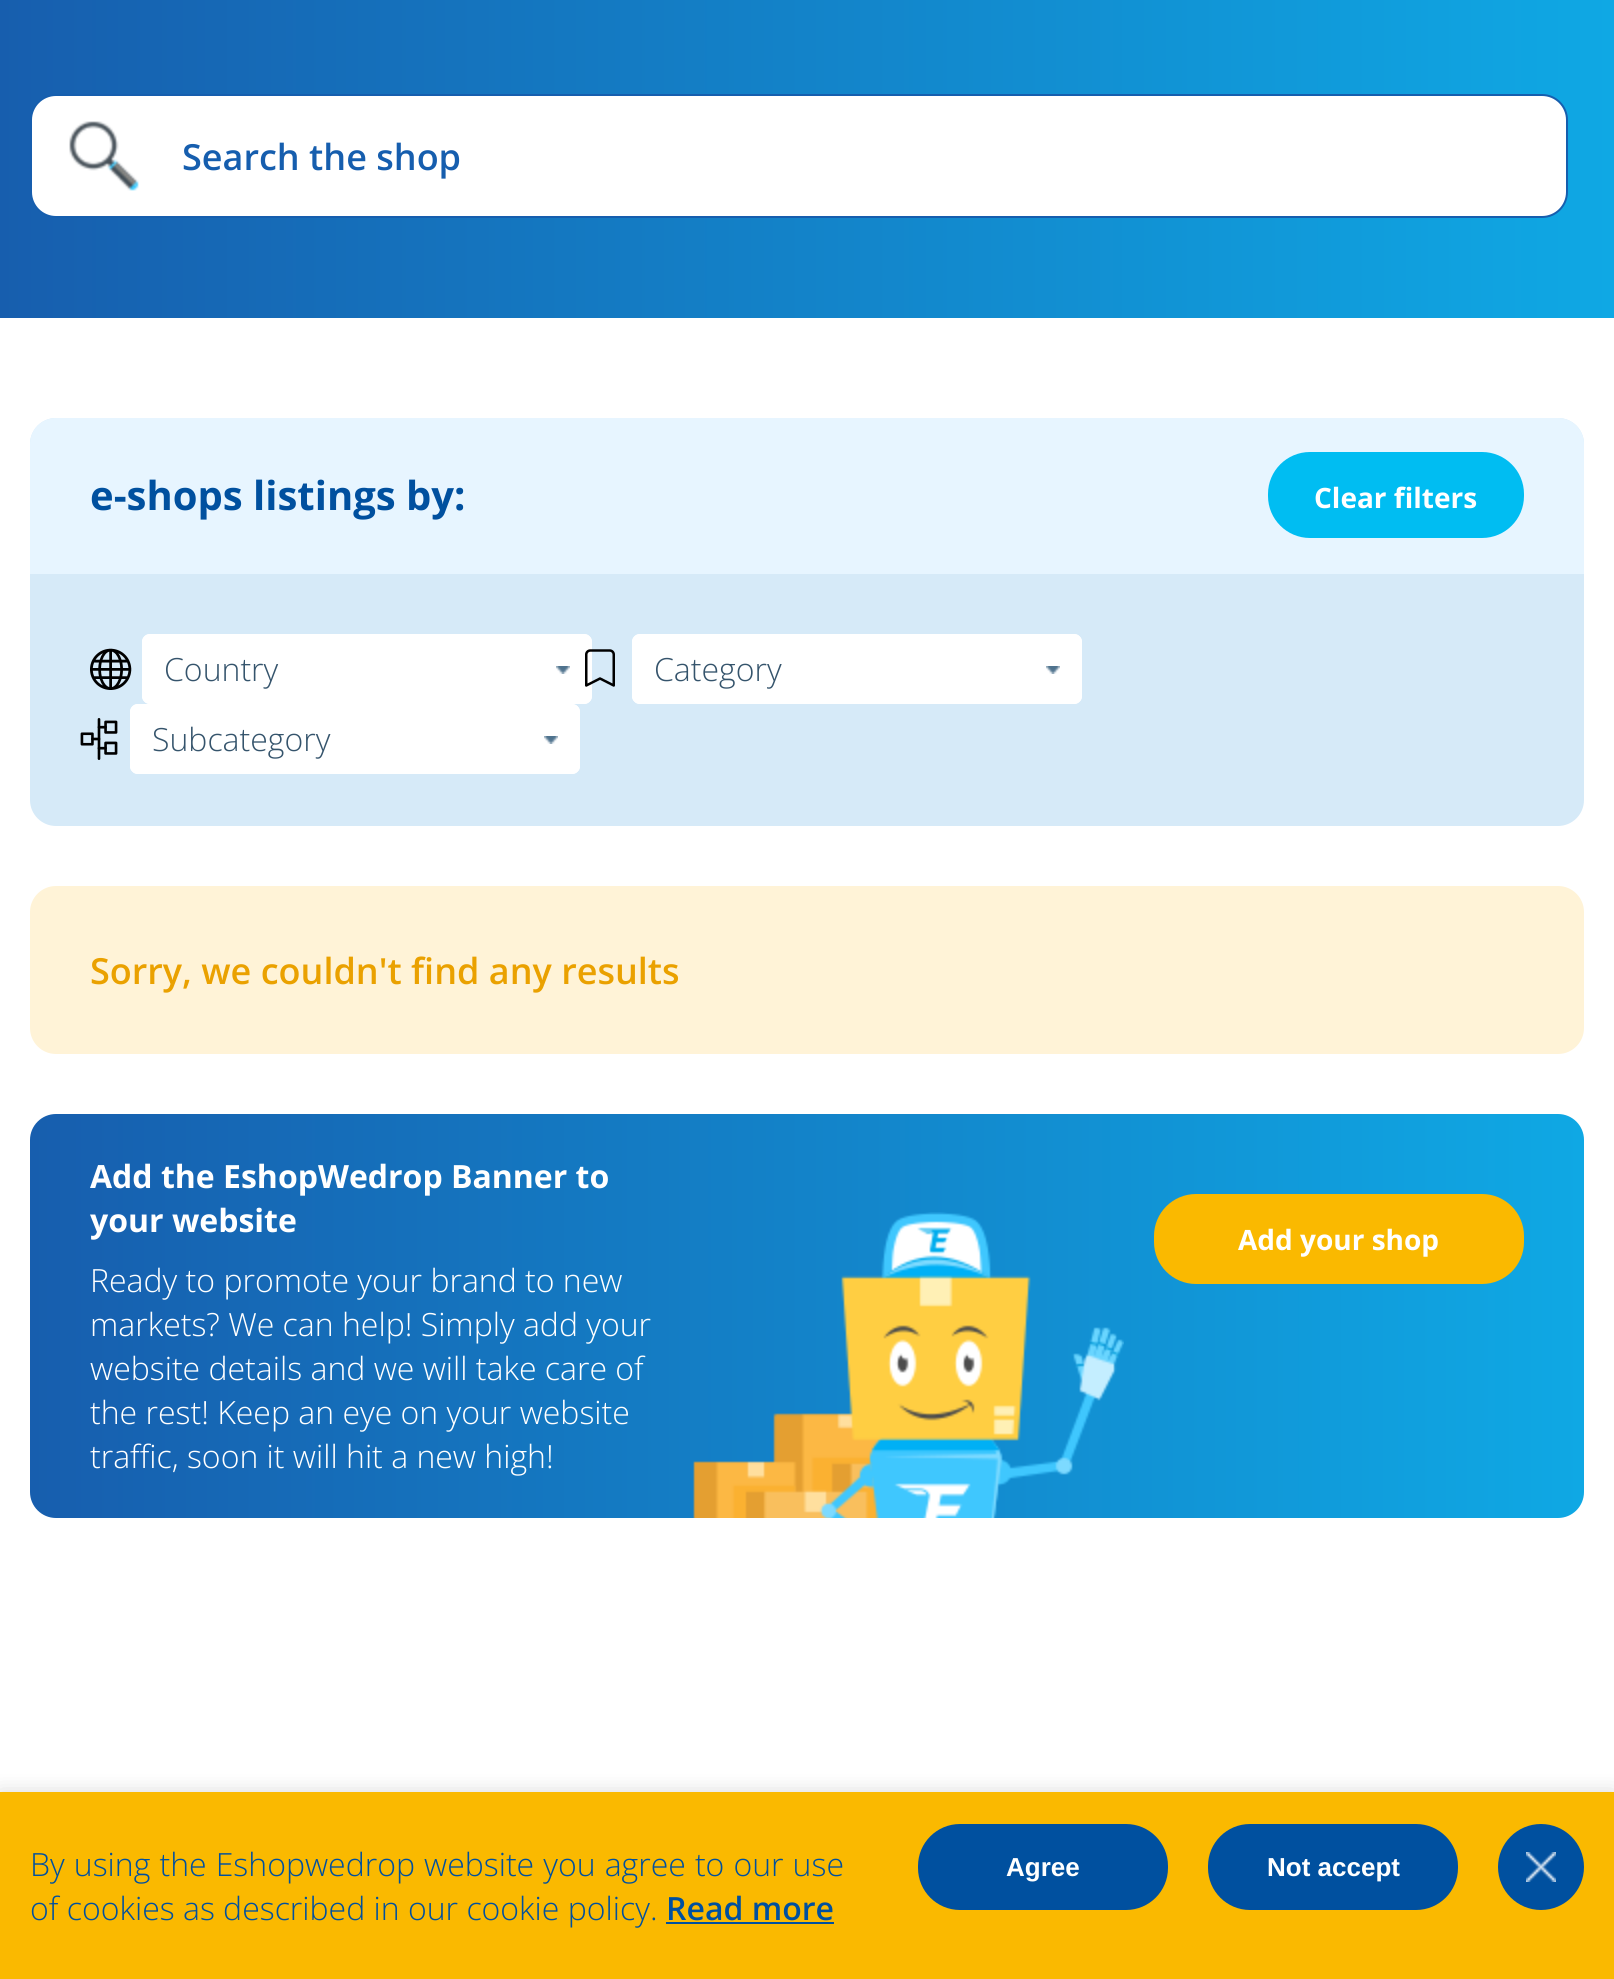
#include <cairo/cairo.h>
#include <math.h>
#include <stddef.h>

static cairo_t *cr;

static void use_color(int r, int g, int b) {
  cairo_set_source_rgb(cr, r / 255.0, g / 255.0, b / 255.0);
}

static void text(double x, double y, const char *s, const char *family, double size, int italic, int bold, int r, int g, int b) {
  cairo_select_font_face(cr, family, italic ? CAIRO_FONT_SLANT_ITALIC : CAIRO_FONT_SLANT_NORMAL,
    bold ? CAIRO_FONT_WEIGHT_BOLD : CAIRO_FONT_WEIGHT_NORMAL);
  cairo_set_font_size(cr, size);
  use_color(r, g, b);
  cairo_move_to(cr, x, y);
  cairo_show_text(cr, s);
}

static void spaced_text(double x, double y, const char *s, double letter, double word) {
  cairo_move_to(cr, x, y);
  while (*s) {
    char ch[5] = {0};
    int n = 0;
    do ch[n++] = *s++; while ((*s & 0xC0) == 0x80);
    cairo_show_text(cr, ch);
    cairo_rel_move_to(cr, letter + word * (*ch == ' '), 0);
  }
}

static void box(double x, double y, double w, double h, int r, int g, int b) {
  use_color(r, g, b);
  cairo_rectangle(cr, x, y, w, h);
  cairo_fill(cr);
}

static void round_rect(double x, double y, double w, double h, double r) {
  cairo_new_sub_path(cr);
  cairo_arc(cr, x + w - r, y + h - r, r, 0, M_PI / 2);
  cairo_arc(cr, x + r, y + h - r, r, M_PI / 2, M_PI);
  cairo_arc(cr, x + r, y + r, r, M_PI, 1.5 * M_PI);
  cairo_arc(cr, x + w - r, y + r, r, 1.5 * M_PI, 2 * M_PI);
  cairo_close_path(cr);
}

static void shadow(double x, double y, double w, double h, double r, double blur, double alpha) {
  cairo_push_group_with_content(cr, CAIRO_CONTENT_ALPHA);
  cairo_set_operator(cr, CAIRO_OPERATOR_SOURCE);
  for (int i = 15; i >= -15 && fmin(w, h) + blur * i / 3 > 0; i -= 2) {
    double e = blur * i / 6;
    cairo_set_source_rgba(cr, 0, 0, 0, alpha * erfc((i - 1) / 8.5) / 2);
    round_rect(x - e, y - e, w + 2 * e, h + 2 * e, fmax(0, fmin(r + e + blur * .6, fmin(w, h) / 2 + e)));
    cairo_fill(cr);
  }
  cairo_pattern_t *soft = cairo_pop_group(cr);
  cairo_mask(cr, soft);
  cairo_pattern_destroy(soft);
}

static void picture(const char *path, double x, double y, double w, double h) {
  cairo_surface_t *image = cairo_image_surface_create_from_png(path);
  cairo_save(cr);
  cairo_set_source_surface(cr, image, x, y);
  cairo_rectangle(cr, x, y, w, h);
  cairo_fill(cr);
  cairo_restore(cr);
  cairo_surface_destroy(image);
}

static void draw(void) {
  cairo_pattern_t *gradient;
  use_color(255, 255, 255);
  cairo_paint(cr);
  gradient = cairo_pattern_create_linear(0, 81, 1614, 81);
  cairo_pattern_add_color_stop_rgba(gradient, 0, 0.09, 0.369, 0.682, 1);
  cairo_pattern_add_color_stop_rgba(gradient, 1, 0.059, 0.659, 0.894, 1);
  cairo_set_source(cr, gradient);
  cairo_pattern_destroy(gradient);
  cairo_rectangle(cr, 0, 0, 1614, 318);
  cairo_fill(cr);
  use_color(255, 255, 255);
  round_rect(31, 95, 1536, 122, 25);
  cairo_fill_preserve(cr);
  use_color(22, 94, 174);
  cairo_stroke(cr);
  picture("img_01.png", 69, 121, 70, 70);
  use_color(214, 234, 248);
  round_rect(30, 418, 1554, 408, 26);
  cairo_fill(cr);
  use_color(231, 245, 255);
  cairo_new_path(cr);
  cairo_move_to(cr, 56, 418);
  cairo_line_to(cr, 1558, 418);
  cairo_curve_to(cr, 1572.5, 418, 1584, 429.5, 1584, 444);
  cairo_line_to(cr, 1584, 574);
  cairo_line_to(cr, 30, 574);
  cairo_line_to(cr, 30, 444);
  cairo_curve_to(cr, 30, 429.5, 41.5, 418, 56, 418);
  cairo_close_path(cr);
  cairo_fill(cr);
  use_color(0, 189, 242);
  round_rect(1268, 452, 256, 86, 42);
  cairo_fill(cr);
  picture("img_02.png", 90, 648, 42, 42);
  use_color(255, 255, 255);
  round_rect(142, 634, 450, 70, 8);
  cairo_fill(cr);
  picture("img_03.png", 556, 666, 14, 8);
  round_rect(143, 635, 448, 68, 7);
  cairo_stroke(cr);
  picture("img_04.png", 585, 649, 30, 38);
  round_rect(632, 634, 450, 70, 8);
  cairo_fill(cr);
  picture("img_03.png", 1046, 666, 14, 8);
  round_rect(633, 635, 448, 68, 7);
  cairo_stroke(cr);
  picture("img_05.png", 80, 718, 38, 42);
  round_rect(130, 704, 450, 70, 8);
  cairo_fill(cr);
  picture("img_03.png", 544, 736, 14, 8);
  round_rect(131, 705, 448, 68, 7);
  cairo_stroke(cr);
  use_color(255, 243, 215);
  round_rect(30, 886, 1554, 168, 26);
  cairo_fill(cr);
  gradient = cairo_pattern_create_linear(30, 1316, 1584, 1316);
  cairo_pattern_add_color_stop_rgba(gradient, 0, 0.09, 0.369, 0.682, 1);
  cairo_pattern_add_color_stop_rgba(gradient, 1, 0.059, 0.659, 0.894, 1);
  cairo_set_source(cr, gradient);
  cairo_pattern_destroy(gradient);
  round_rect(30, 1114, 1554, 404, 26);
  cairo_fill(cr);
  picture("img_06.png", 693, 1212, 431, 306);
  use_color(250, 185, 0);
  round_rect(1154, 1194, 370, 90, 42);
  cairo_fill(cr);
  use_color(0, 0, 0);
  shadow(0, 1792, 1614, 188, 0, 10, 0.15);
  box(0, 1792, 1614, 187, 250, 185, 0);
  box(666, 1922, 168, 2, 0, 80, 159);
  round_rect(918, 1824, 250, 86, 42);
  cairo_fill(cr);
  round_rect(1208, 1824, 250, 86, 42);
  cairo_fill(cr);
  cairo_arc(cr, 1541, 1867, 43, 0, 2 * M_PI);
  cairo_fill(cr);
  picture("img_07.png", 1526, 1852, 30, 30);
  text(182, 170, "Search the shop", "Open Sans SemiBold", 36, 0, 0, 22, 94, 174);
  text(90, 510, "e-shops listings by:", "Open Sans", 40, 0, 1, 0, 80, 159);
  text(1314, 508, "Clear filters", "Open Sans", 28, 0, 1, 255, 255, 255);
  text(164, 681, "Country", "Open Sans Light", 32, 0, 0, 53, 84, 108);
  text(654, 681, "Category", "Open Sans Light", 32, 0, 0, 53, 84, 108);
  text(152, 751, "Subcategory", "Open Sans Light", 32, 0, 0, 53, 84, 108);
  text(90, 984, "Sorry, we couldn't find any results", "Open Sans SemiBold", 36, 0, 0, 234, 161, 0);
  text(90, 1188, "Add the EshopWedrop Banner to", "Open Sans", 32, 0, 1, 255, 255, 255);
  text(90, 1232, "your website", "Open Sans", 32, 0, 1, 255, 255, 255);
  text(1238, 1250, "Add your shop", "Open Sans", 28, 0, 1, 255, 255, 255);
  text(90, 1292, "Ready to promote your brand to new", "Open Sans Light", 32, 0, 0, 255, 255, 255);
  text(90, 1336, "markets? We can help! Simply add your", "Open Sans Light", 32, 0, 0, 255, 255, 255);
  text(90, 1380, "website details and we will take care of", "Open Sans Light", 32, 0, 0, 255, 255, 255);
  text(90, 1424, "the rest! Keep an eye on your website", "Open Sans Light", 32, 0, 0, 255, 255, 255);
  text(90, 1468, "traffic, soon it will hit a new high!", "Open Sans Light", 32, 0, 0, 255, 255, 255);
  use_color(0, 80, 159);
  spaced_text(30, 1876, "By using the Eshopwedrop website you agree to our use", 0, 0.75);
  text(30, 1920, "of cookies as described in our cookie policy.", "Open Sans Light", 32, 0, 0, 0, 80, 159);
  text(666, 1920, "Read more", "Open Sans SemiBold", 32, 0, 0, 0, 80, 159);
  text(1006, 1876, "Agree", "Liberation Sans", 26, 0, 1, 255, 255, 255);
  text(1267, 1876, "Not accept", "Liberation Sans", 26, 0, 1, 255, 255, 255);
}

int main(void) {
  cairo_surface_t *surface = cairo_image_surface_create(CAIRO_FORMAT_RGB24, 1614, 1979);
  cr = cairo_create(surface);
  cairo_font_options_t *options = cairo_font_options_create();
  cairo_font_options_set_hint_metrics(options, CAIRO_HINT_METRICS_OFF);
  cairo_font_options_set_hint_style(options, CAIRO_HINT_STYLE_NONE);
  cairo_set_font_options(cr, options);
  cairo_set_miter_limit(cr, 4);
  draw();
  cairo_surface_write_to_png(surface, "out.png");
  cairo_font_options_destroy(options);
  cairo_destroy(cr);
  cairo_surface_destroy(surface);
  return 0;
}
